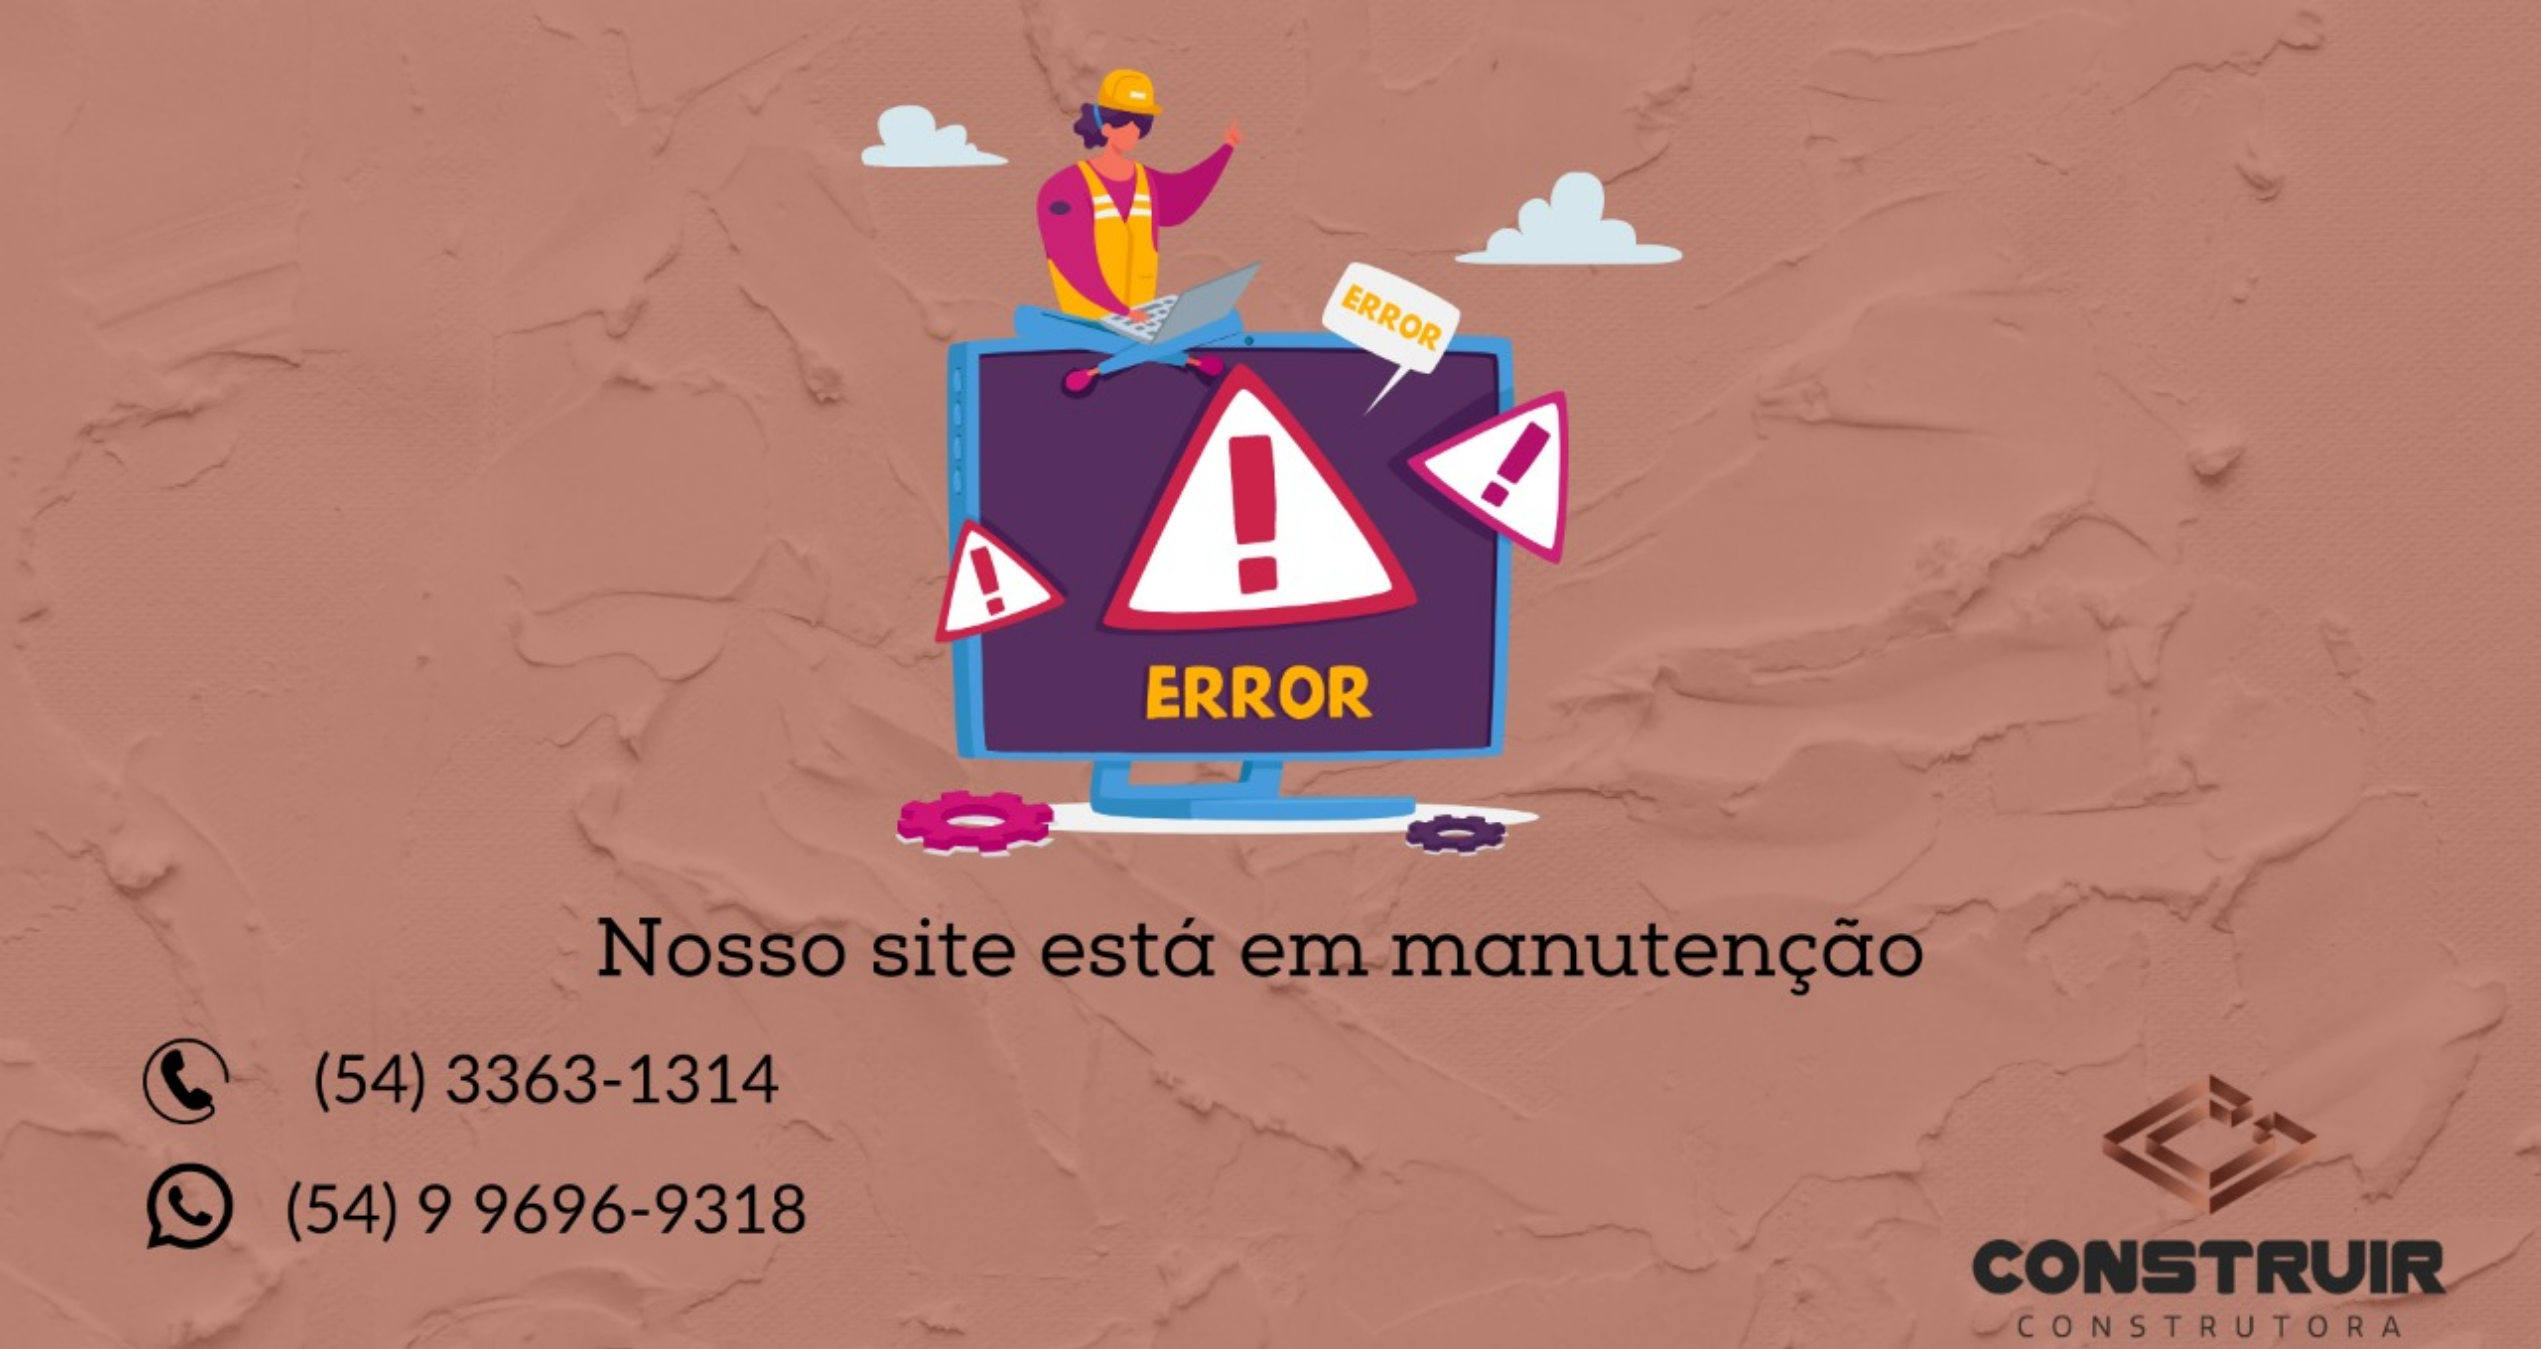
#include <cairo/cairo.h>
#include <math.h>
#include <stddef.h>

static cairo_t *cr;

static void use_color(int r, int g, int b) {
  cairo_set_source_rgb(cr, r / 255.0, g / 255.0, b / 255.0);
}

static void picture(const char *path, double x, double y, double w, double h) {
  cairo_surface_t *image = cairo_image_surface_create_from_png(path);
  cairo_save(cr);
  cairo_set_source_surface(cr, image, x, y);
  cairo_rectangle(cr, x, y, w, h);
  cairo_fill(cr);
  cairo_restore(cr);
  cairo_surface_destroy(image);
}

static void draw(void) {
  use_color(255, 255, 255);
  cairo_paint(cr);
  picture("img_01.png", 0, 0, 2541, 1349);
}

int main(void) {
  cairo_surface_t *surface = cairo_image_surface_create(CAIRO_FORMAT_RGB24, 2541, 1349);
  cr = cairo_create(surface);
  cairo_font_options_t *options = cairo_font_options_create();
  cairo_font_options_set_hint_metrics(options, CAIRO_HINT_METRICS_OFF);
  cairo_font_options_set_hint_style(options, CAIRO_HINT_STYLE_NONE);
  cairo_set_font_options(cr, options);
  cairo_set_miter_limit(cr, 4);
  draw();
  cairo_surface_write_to_png(surface, "out.png");
  cairo_font_options_destroy(options);
  cairo_destroy(cr);
  cairo_surface_destroy(surface);
  return 0;
}
